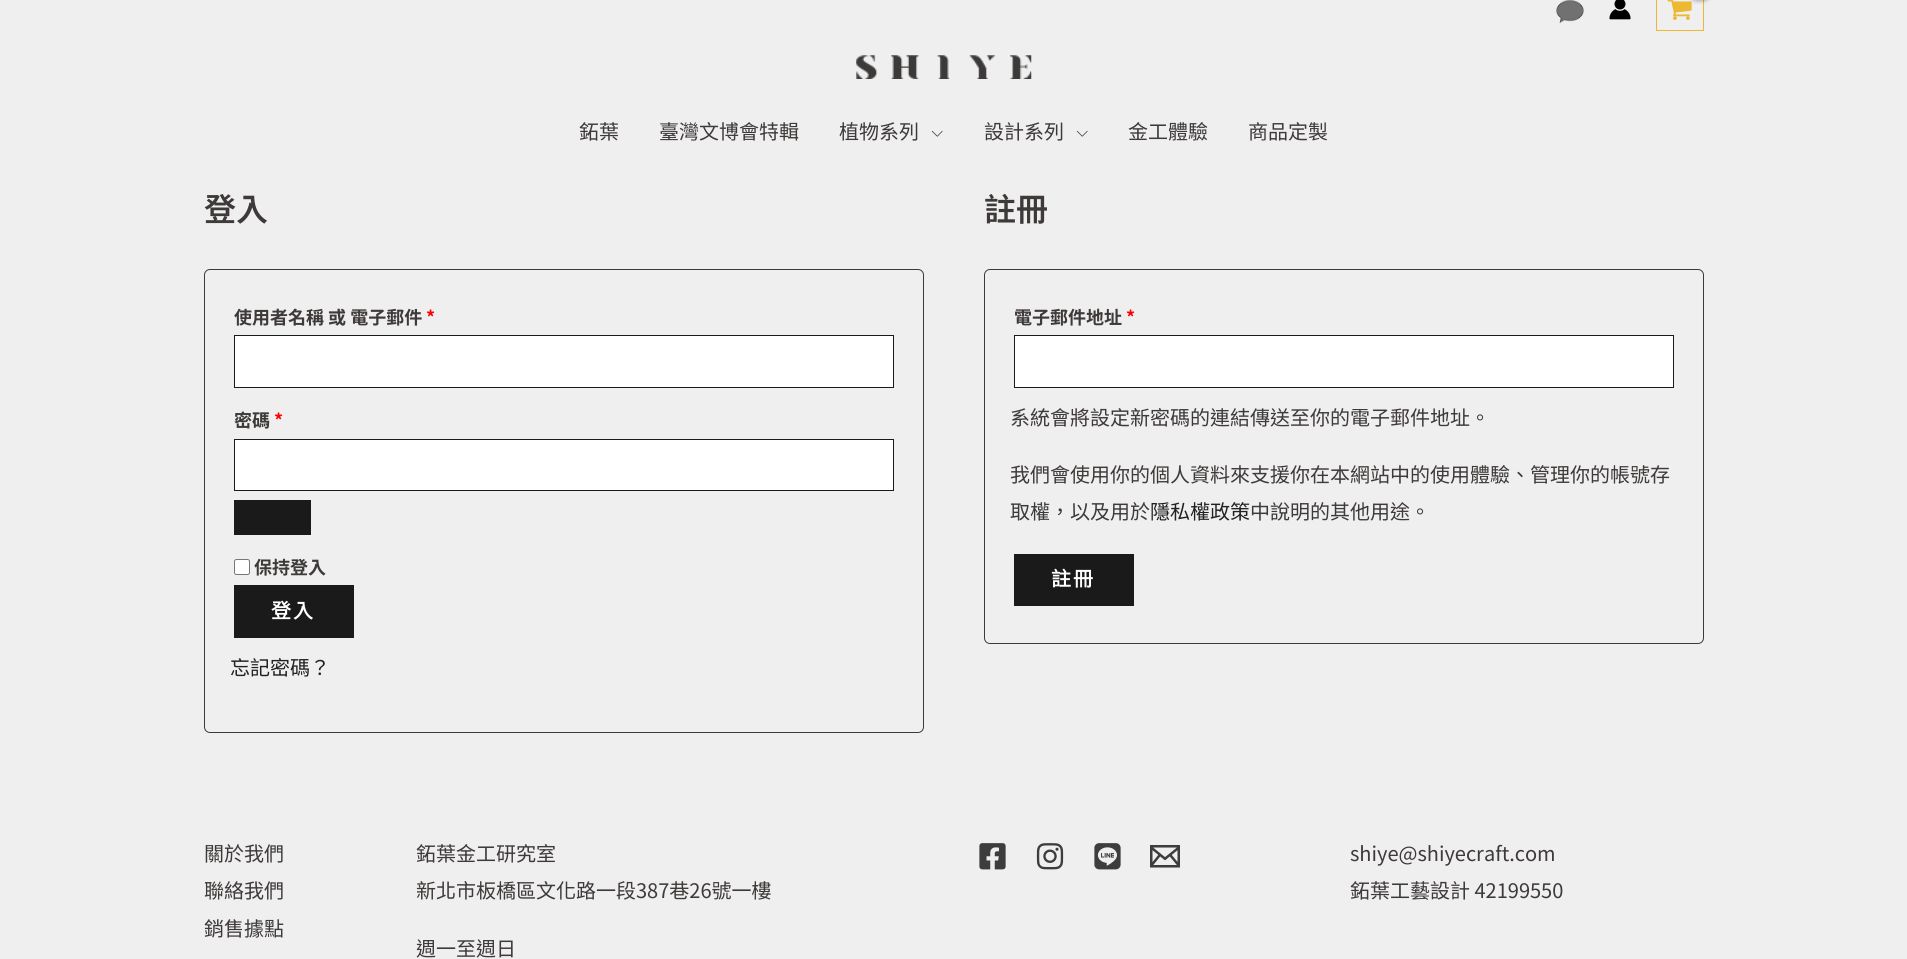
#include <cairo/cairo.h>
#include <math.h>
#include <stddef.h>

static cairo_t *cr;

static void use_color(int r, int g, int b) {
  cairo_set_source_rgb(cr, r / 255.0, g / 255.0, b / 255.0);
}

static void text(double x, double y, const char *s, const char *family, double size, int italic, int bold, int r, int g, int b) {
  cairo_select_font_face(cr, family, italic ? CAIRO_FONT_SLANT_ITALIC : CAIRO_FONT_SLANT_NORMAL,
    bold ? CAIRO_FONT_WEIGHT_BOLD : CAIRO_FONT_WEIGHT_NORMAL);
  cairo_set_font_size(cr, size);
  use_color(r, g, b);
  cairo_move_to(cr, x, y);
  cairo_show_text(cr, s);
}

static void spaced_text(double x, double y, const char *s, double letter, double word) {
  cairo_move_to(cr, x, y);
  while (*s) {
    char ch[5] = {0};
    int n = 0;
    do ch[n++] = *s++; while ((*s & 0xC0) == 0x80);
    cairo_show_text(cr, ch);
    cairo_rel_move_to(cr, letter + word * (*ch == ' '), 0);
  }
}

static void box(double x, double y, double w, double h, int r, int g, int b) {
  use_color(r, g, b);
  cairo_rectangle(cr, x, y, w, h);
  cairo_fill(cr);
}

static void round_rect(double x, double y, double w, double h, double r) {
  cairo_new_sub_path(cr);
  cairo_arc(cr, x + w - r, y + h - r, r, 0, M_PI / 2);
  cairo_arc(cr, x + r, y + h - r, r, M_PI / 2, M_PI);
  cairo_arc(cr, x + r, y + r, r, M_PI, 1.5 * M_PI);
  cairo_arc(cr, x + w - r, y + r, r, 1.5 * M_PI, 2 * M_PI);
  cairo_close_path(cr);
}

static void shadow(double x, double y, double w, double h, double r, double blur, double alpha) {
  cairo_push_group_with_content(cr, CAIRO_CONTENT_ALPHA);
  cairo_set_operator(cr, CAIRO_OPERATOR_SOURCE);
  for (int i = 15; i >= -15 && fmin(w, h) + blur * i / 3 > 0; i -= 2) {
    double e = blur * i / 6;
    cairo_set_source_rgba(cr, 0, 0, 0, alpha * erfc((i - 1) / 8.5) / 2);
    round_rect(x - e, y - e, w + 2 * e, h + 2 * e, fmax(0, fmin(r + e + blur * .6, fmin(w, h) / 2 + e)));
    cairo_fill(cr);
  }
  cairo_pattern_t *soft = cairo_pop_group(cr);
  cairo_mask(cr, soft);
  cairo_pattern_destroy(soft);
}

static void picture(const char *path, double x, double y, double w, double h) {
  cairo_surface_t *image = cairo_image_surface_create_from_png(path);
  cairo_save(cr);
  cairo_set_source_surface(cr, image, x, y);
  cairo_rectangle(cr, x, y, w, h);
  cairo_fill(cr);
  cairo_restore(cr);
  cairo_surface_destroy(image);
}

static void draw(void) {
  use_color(239, 239, 239);
  cairo_paint(cr);
  picture("img_01.png", 1556, 0, 28, 24);
  picture("img_02.png", 1609, 0, 22, 20);
  cairo_rectangle(cr, 1656.5, -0.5, 47, 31);
  use_color(237, 184, 50);
  cairo_set_line_width(cr, 1);
  cairo_stroke(cr);
  picture("img_03.png", 1667, 0, 25, 20);
  use_color(0, 0, 0);
  shadow(1689, -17, 22, 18, 11, 2, 0.3);
  picture("img_04.png", 856, 55, 176, 24);
  picture("img_05.png", 931, 130, 12, 7);
  picture("img_05.png", 1076, 130, 12, 7);
  round_rect(204.5, 269.5, 719, 463, 5.5);
  use_color(62, 58, 57);
  cairo_stroke(cr);
  use_color(255, 255, 255);
  cairo_rectangle(cr, 234.5, 335.5, 659, 52);
  cairo_fill_preserve(cr);
  use_color(26, 26, 26);
  cairo_stroke(cr);
  use_color(255, 255, 255);
  cairo_rectangle(cr, 234.5, 439.5, 659, 51);
  cairo_fill_preserve(cr);
  use_color(26, 26, 26);
  cairo_stroke(cr);
  box(234, 500, 77, 35, 26, 26, 26);
  use_color(255, 255, 255);
  round_rect(234.5, 559.5, 15, 15, 2);
  cairo_fill_preserve(cr);
  use_color(118, 118, 118);
  cairo_stroke(cr);
  box(234, 585, 120, 53, 26, 26, 26);
  round_rect(984.5, 269.5, 719, 374, 5.5);
  use_color(62, 58, 57);
  cairo_stroke(cr);
  use_color(255, 255, 255);
  cairo_rectangle(cr, 1014.5, 335.5, 659, 52);
  cairo_fill_preserve(cr);
  use_color(26, 26, 26);
  cairo_stroke(cr);
  box(1014, 554, 120, 52, 26, 26, 26);
  picture("img_06.png", 979, 843, 27, 27);
  picture("img_07.png", 1036, 843, 28, 27);
  picture("img_08.png", 1094, 843, 27, 27);
  picture("img_09.png", 1150, 845, 30, 23);
  text(579, 139, "鉐葉", "Noto Sans TC", 20, 0, 0, 62, 58, 57);
  text(659, 139, "臺灣文博會特輯", "Noto Sans TC", 20, 0, 0, 62, 58, 57);
  text(839, 139, "植物系列", "Noto Sans TC", 20, 0, 0, 62, 58, 57);
  text(984, 139, "設計系列", "Noto Sans TC", 20, 0, 0, 62, 58, 57);
  text(1128, 139, "金工體驗", "Noto Sans TC", 20, 0, 0, 62, 58, 57);
  text(1248, 139, "商品定製", "Noto Sans TC", 20, 0, 0, 62, 58, 57);
  text(204, 221, "登入", "Noto Sans TC SemiBold", 32, 0, 0, 62, 58, 57);
  text(234, 324, "使用者名稱 或 電子郵件", "Noto Sans TC", 18, 0, 1, 62, 58, 57);
  text(426, 324, "*", "Noto Sans TC", 18, 0, 1, 255, 0, 0);
  text(234, 427, "密碼", "Noto Sans TC", 18, 0, 1, 62, 58, 57);
  text(274, 427, "*", "Noto Sans TC", 18, 0, 1, 255, 0, 0);
  text(254, 574, "保持登入", "Noto Sans TC", 18, 0, 1, 62, 58, 57);
  cairo_select_font_face(cr, "Noto Sans CJK TC", CAIRO_FONT_SLANT_NORMAL, CAIRO_FONT_WEIGHT_BOLD);
  cairo_set_font_size(cr, 20);
  use_color(255, 255, 255);
  spaced_text(271, 618, "登入", 2, 0);
  text(230, 675, "忘記密碼？", "Noto Sans TC", 20, 0, 0, 33, 33, 33);
  text(984, 221, "註冊", "Noto Sans TC SemiBold", 32, 0, 0, 62, 58, 57);
  text(1014, 324, "電子郵件地址", "Noto Sans TC", 18, 0, 1, 62, 58, 57);
  text(1126, 324, "*", "Noto Sans TC", 18, 0, 1, 255, 0, 0);
  text(1010, 425, "系統會將設定新密碼的連結傳送至你的電子郵件地址。", "Noto Sans TC", 20, 0, 0, 62, 58, 57);
  text(1010, 482, "我們會使用你的個人資料來支援你在本網站中的使用體驗、管理你的帳號存", "Noto Sans TC", 20, 0, 0, 62, 58, 57);
  text(1010, 519, "取權，以及用於", "Noto Sans TC", 20, 0, 0, 62, 58, 57);
  text(1150, 519, "隱私權政策", "Noto Sans TC", 20, 0, 0, 33, 33, 33);
  text(1250, 519, "中說明的其他用途。", "Noto Sans TC", 20, 0, 0, 62, 58, 57);
  cairo_select_font_face(cr, "Noto Sans CJK TC", CAIRO_FONT_SLANT_NORMAL, CAIRO_FONT_WEIGHT_BOLD);
  use_color(255, 255, 255);
  spaced_text(1051, 586, "註冊", 2, 0);
  text(204, 861, "關於我們", "Noto Sans TC", 20, 0, 0, 62, 58, 57);
  text(204, 898, "聯絡我們", "Noto Sans TC", 20, 0, 0, 62, 58, 57);
  text(204, 936, "銷售據點", "Noto Sans TC", 20, 0, 0, 62, 58, 57);
  text(416, 861, "鉐葉金工研究室", "Noto Sans TC", 20, 0, 0, 62, 58, 57);
  text(416, 898, "新北市板橋區文化路一段387巷26號一樓", "Noto Sans TC", 20, 0, 0, 62, 58, 57);
  text(416, 956, "週一至週日", "Noto Sans TC", 20, 0, 0, 62, 58, 57);
  text(1350, 861, "shiye@shiyecraft.com", "Noto Sans TC", 20, 0, 0, 62, 58, 57);
  text(1350, 898, "鉐葉工藝設計 42199550", "Noto Sans TC", 20, 0, 0, 62, 58, 57);
}

int main(void) {
  cairo_surface_t *surface = cairo_image_surface_create(CAIRO_FORMAT_RGB24, 1907, 959);
  cr = cairo_create(surface);
  cairo_font_options_t *options = cairo_font_options_create();
  cairo_font_options_set_hint_metrics(options, CAIRO_HINT_METRICS_OFF);
  cairo_font_options_set_hint_style(options, CAIRO_HINT_STYLE_NONE);
  cairo_set_font_options(cr, options);
  cairo_set_miter_limit(cr, 4);
  draw();
  cairo_surface_write_to_png(surface, "out.png");
  cairo_font_options_destroy(options);
  cairo_destroy(cr);
  cairo_surface_destroy(surface);
  return 0;
}
